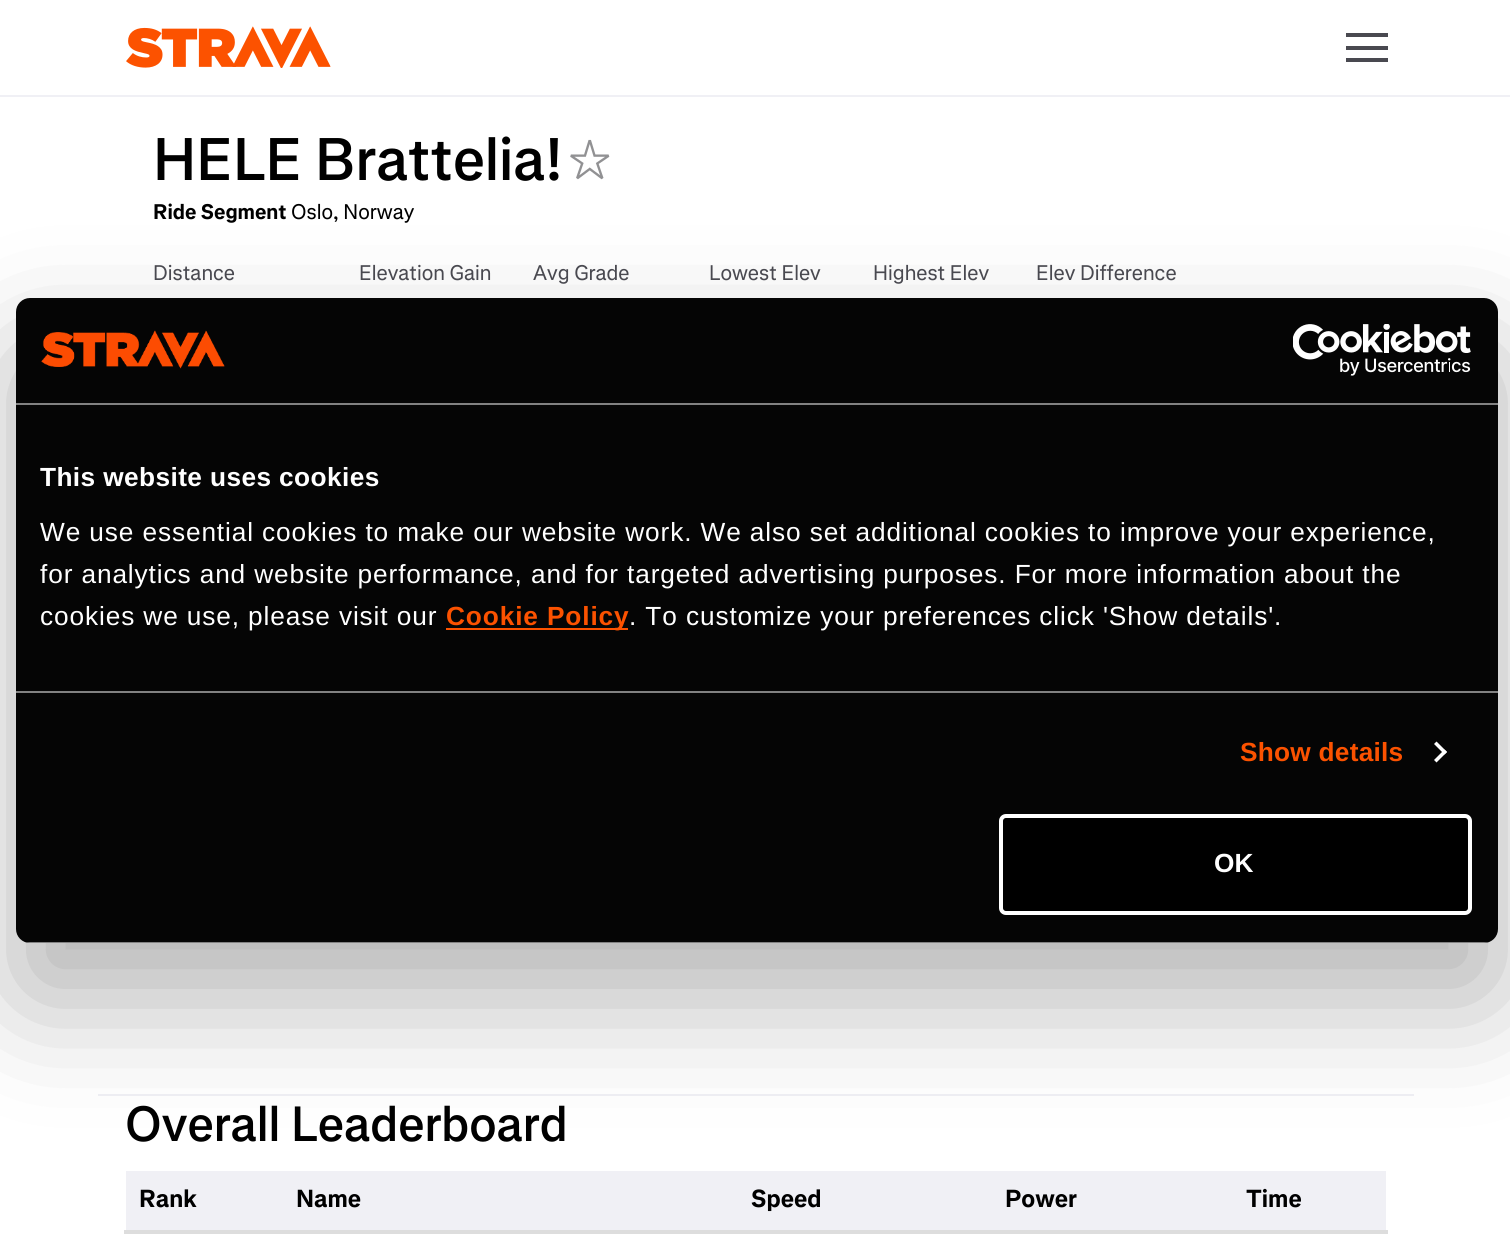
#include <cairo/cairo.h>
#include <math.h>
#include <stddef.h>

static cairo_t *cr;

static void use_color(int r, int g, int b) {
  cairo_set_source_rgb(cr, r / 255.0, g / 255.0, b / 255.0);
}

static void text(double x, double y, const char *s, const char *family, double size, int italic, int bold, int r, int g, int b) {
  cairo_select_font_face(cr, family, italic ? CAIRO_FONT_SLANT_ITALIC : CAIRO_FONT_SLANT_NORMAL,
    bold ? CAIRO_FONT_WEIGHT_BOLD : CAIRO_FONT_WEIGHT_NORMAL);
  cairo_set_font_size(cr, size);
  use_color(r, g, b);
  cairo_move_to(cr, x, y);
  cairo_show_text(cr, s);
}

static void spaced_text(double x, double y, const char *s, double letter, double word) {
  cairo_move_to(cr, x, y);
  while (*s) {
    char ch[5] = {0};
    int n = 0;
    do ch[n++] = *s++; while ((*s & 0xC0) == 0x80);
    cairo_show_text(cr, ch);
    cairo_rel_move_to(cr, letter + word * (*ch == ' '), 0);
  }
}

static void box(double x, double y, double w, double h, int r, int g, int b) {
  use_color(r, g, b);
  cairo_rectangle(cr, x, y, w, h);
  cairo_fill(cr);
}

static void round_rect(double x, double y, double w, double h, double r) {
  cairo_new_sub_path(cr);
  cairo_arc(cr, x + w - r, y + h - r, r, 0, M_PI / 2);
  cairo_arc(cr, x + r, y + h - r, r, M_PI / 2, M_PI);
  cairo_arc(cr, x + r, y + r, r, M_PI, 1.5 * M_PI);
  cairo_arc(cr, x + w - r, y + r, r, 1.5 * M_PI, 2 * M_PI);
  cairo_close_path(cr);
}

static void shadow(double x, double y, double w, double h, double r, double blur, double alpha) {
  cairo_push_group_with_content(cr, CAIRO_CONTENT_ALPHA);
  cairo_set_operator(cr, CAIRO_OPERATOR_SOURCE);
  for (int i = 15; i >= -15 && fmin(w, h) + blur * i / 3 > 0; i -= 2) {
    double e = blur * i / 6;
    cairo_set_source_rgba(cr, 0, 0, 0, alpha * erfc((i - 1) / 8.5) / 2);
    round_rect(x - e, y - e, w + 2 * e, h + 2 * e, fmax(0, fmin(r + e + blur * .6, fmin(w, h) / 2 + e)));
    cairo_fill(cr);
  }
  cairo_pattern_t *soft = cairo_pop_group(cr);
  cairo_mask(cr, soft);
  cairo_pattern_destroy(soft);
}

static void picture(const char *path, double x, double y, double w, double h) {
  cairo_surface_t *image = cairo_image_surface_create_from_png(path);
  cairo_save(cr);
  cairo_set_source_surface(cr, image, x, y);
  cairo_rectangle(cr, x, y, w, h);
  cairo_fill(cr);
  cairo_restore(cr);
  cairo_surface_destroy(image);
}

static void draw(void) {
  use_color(255, 255, 255);
  cairo_paint(cr);
  box(0, 95, 1510, 2, 240, 240, 245);
  picture("img_01.png", 126, 26, 205, 42);
  box(1346, 33, 42, 4, 73, 73, 80);
  box(1346, 58, 42, 4, 73, 73, 80);
  box(1346, 46, 42, 4, 73, 73, 80);
  picture("img_02.png", 570, 139, 40, 41);
  box(98, 1094, 1316, 2, 240, 240, 245);
  box(126, 1171, 1260, 59, 240, 240, 245);
  box(124, 1230, 1264, 4, 221, 221, 221);
  use_color(0, 0, 0);
  shadow(16, 354, 1482, 645, 14, 59.5, 0.3);
  use_color(5, 5, 5);
  round_rect(16, 298, 1482, 645, 14);
  cairo_fill(cr);
  box(16, 403, 1482, 2, 130, 130, 130);
  picture("img_03.png", 41, 330, 184, 39);
  picture("img_04.png", 1293, 324, 178, 52);
  box(16, 691, 1482, 2, 130, 130, 130);
  box(446, 628, 182, 2, 252, 82, 0);
  use_color(255, 255, 255);
  cairo_new_path(cr);
  cairo_move_to(cr, 1436.5, 741.5);
  cairo_line_to(cr, 1447, 752);
  cairo_line_to(cr, 1444.5, 754.5);
  cairo_line_to(cr, 1434, 744);
  cairo_close_path(cr);
  cairo_fill(cr);
  cairo_new_path(cr);
  cairo_move_to(cr, 1444.5, 749.5);
  cairo_line_to(cr, 1447, 752);
  cairo_line_to(cr, 1436.5, 762.5);
  cairo_line_to(cr, 1434, 760);
  cairo_close_path(cr);
  cairo_fill(cr);
  cairo_save(cr);
  round_rect(16, 298, 1482, 645, 14);
  cairo_clip(cr);
  box(25, 942, 1464, 1, 130, 130, 130);
  cairo_restore(cr);
  use_color(0, 0, 0);
  round_rect(1001, 816, 469, 97, 5);
  cairo_fill_preserve(cr);
  use_color(255, 255, 255);
  cairo_set_line_width(cr, 4);
  cairo_stroke(cr);
  text(153, 180, "HELE Brattelia!", "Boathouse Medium", 59.5, 0, 0, 0, 0, 0);
  text(153, 219, "Ride Segment", "Boathouse", 21, 0, 1, 0, 0, 0);
  text(291, 219, "Oslo, Norway", "Boathouse", 21, 0, 0, 0, 0, 0);
  text(153, 280, "Distance", "Boathouse", 21, 0, 0, 73, 73, 80);
  text(359, 280, "Elevation Gain", "Boathouse", 21, 0, 0, 73, 73, 80);
  text(533, 280, "Avg Grade", "Boathouse", 21, 0, 0, 73, 73, 80);
  text(709, 280, "Lowest Elev", "Boathouse", 21, 0, 0, 73, 73, 80);
  text(873, 280, "Highest Elev", "Boathouse", 21, 0, 0, 73, 73, 80);
  text(1036, 280, "Elev Difference", "Boathouse", 21, 0, 0, 73, 73, 80);
  text(125, 1141, "Overall Leaderboard", "Boathouse Medium", 49, 0, 0, 0, 0, 0);
  text(139, 1207, "Rank", "Boathouse", 24.5, 0, 1, 0, 0, 0);
  text(296, 1207, "Name", "Boathouse", 24.5, 0, 1, 0, 0, 0);
  text(751, 1207, "Speed", "Boathouse", 24.5, 0, 1, 0, 0, 0);
  text(1005, 1207, "Power", "Boathouse", 24.5, 0, 1, 0, 0, 0);
  text(1246, 1207, "Time", "Boathouse", 24.5, 0, 1, 0, 0, 0);
  cairo_select_font_face(cr, "Liberation Sans", CAIRO_FONT_SLANT_NORMAL, CAIRO_FONT_WEIGHT_BOLD);
  cairo_set_font_size(cr, 26.25);
  use_color(255, 255, 255);
  spaced_text(40, 486, "This website uses cookies", 0.4, 0);
  cairo_select_font_face(cr, "Liberation Sans", CAIRO_FONT_SLANT_NORMAL, CAIRO_FONT_WEIGHT_NORMAL);
  spaced_text(40, 541, "We use essential cookies to make our website work. We also set additional cookies to improve your experience,", 0.88, 0);
  spaced_text(40, 583, "for analytics and website performance, and for targeted advertising purposes. For more information about the", 0.88, 0);
  spaced_text(40, 625, "cookies we use, please visit our", 0.88, 0);
  cairo_select_font_face(cr, "Liberation Sans", CAIRO_FONT_SLANT_NORMAL, CAIRO_FONT_WEIGHT_BOLD);
  use_color(252, 82, 0);
  spaced_text(446, 625, "Cookie Policy", 0.88, 0);
  cairo_select_font_face(cr, "Liberation Sans", CAIRO_FONT_SLANT_NORMAL, CAIRO_FONT_WEIGHT_NORMAL);
  use_color(255, 255, 255);
  spaced_text(629, 625, ". To customize your preferences click 'Show details'.", 0.88, 0);
  cairo_select_font_face(cr, "Liberation Sans", CAIRO_FONT_SLANT_NORMAL, CAIRO_FONT_WEIGHT_BOLD);
  use_color(252, 82, 0);
  spaced_text(1240, 761, "Show details", 0.25, 0);
  text(1214, 872, "OK", "Liberation Sans", 26.25, 0, 1, 255, 255, 255);
}

int main(void) {
  cairo_surface_t *surface = cairo_image_surface_create(CAIRO_FORMAT_RGB24, 1510, 1239);
  cr = cairo_create(surface);
  cairo_font_options_t *options = cairo_font_options_create();
  cairo_font_options_set_hint_metrics(options, CAIRO_HINT_METRICS_OFF);
  cairo_font_options_set_hint_style(options, CAIRO_HINT_STYLE_NONE);
  cairo_set_font_options(cr, options);
  cairo_set_miter_limit(cr, 4);
  draw();
  cairo_surface_write_to_png(surface, "out.png");
  cairo_font_options_destroy(options);
  cairo_destroy(cr);
  cairo_surface_destroy(surface);
  return 0;
}
